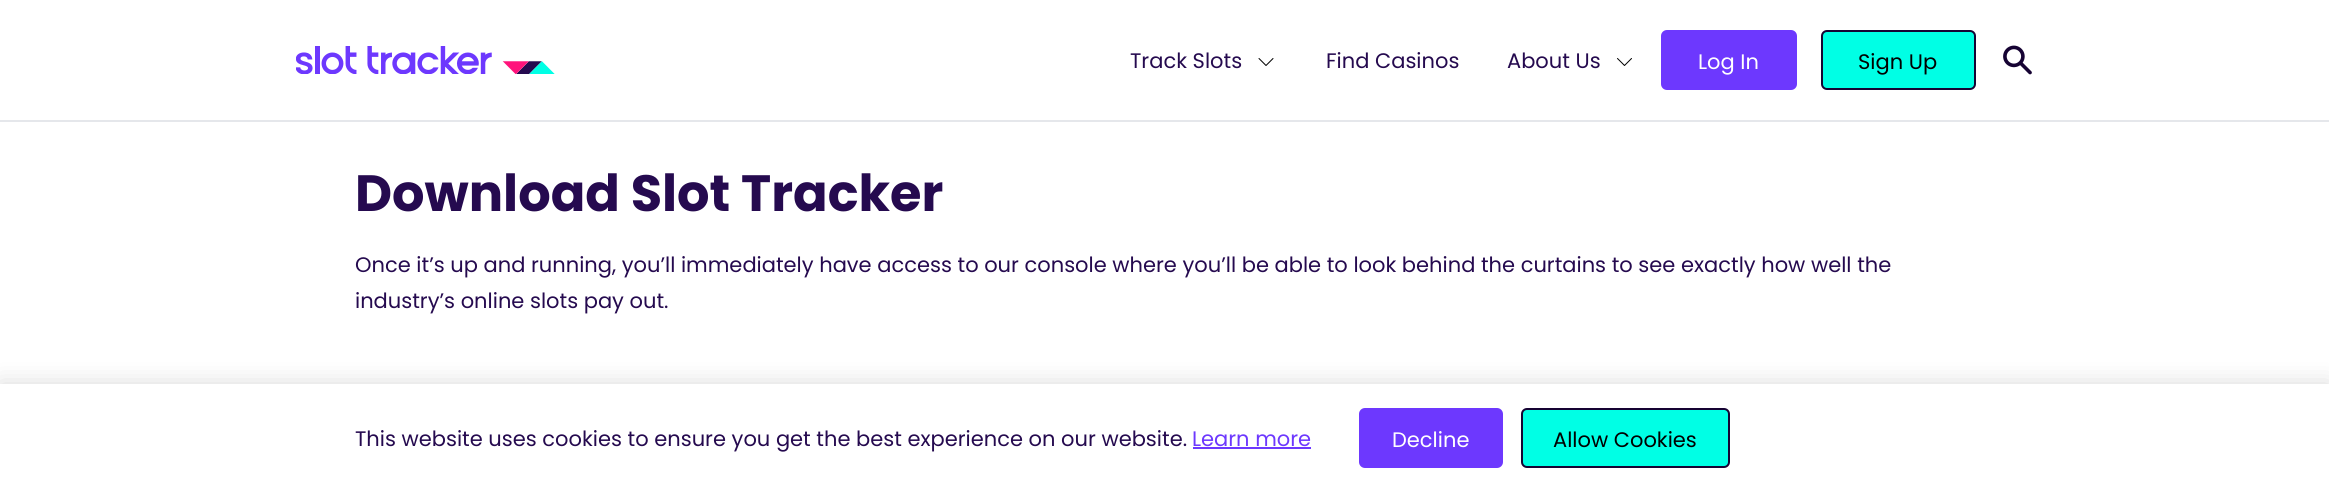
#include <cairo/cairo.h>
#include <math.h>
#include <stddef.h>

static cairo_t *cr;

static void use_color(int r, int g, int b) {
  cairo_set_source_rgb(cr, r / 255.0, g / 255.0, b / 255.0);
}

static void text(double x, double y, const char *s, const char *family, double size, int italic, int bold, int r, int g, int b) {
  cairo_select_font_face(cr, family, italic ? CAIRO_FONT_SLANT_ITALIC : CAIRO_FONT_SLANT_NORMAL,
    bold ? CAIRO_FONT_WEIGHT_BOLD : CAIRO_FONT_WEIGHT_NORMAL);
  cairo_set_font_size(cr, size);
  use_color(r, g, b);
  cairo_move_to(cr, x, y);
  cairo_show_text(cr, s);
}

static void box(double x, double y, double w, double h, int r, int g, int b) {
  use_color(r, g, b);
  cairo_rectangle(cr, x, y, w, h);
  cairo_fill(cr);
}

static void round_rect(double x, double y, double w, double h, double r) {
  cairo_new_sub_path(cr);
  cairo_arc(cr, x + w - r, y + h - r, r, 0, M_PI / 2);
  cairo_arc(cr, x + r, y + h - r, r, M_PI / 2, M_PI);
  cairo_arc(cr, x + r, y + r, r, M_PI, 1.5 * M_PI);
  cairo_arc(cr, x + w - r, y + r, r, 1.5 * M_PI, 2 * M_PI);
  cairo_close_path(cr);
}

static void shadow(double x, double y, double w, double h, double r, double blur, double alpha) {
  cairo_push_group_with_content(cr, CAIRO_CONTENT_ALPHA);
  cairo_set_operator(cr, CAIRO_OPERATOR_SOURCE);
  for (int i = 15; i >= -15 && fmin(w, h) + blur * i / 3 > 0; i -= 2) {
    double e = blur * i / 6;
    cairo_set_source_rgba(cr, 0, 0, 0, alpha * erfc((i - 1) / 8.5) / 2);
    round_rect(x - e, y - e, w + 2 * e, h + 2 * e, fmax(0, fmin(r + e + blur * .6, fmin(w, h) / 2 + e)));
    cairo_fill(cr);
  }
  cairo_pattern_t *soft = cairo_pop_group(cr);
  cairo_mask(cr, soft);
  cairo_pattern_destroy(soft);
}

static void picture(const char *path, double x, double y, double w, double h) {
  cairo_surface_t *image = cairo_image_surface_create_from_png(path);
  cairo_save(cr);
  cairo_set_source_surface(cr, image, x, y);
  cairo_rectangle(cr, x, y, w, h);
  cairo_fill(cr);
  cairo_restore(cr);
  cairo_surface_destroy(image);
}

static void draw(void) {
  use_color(255, 255, 255);
  cairo_paint(cr);
  box(0, 120, 2329, 2, 229, 231, 235);
  picture("img_01.png", 296, 46, 259, 28);
  cairo_new_path(cr);
  cairo_move_to(cr, 1273, 58.5);
  cairo_line_to(cr, 1266, 65.5);
  cairo_line_to(cr, 1259, 58.5);
  use_color(0, 0, 0);
  cairo_set_line_width(cr, 1);
  cairo_set_line_cap(cr, CAIRO_LINE_CAP_ROUND);
  cairo_set_line_join(cr, CAIRO_LINE_JOIN_ROUND);
  cairo_stroke(cr);
  cairo_new_path(cr);
  cairo_move_to(cr, 1631.5, 58.5);
  cairo_line_to(cr, 1624.5, 65.5);
  cairo_line_to(cr, 1617.5, 58.5);
  cairo_stroke(cr);
  use_color(109, 56, 254);
  round_rect(1662, 31, 134, 58, 5);
  cairo_fill_preserve(cr);
  cairo_set_line_width(cr, 2);
  cairo_set_line_cap(cr, CAIRO_LINE_CAP_BUTT);
  cairo_set_line_join(cr, CAIRO_LINE_JOIN_MITER);
  cairo_stroke(cr);
  use_color(0, 255, 229);
  round_rect(1822, 31, 153, 58, 5);
  cairo_fill_preserve(cr);
  use_color(22, 3, 51);
  cairo_stroke(cr);
  picture("img_02.png", 2003, 45, 29, 30);
  use_color(0, 0, 0);
  shadow(0, 384, 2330, 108, 0, 12, 0.15);
  box(0, 384, 2329, 107, 255, 255, 255);
  box(1193, 447, 118, 2, 109, 56, 254);
  round_rect(1360, 409, 142, 58, 5);
  cairo_fill_preserve(cr);
  cairo_stroke(cr);
  use_color(0, 255, 229);
  round_rect(1522, 409, 207, 58, 5);
  cairo_fill_preserve(cr);
  use_color(22, 3, 51);
  cairo_stroke(cr);
  text(1130, 68, "Track Slots", "Poppins", 21, 0, 0, 37, 10, 79);
  text(1326, 68, "Find Casinos", "Poppins", 21, 0, 0, 37, 10, 79);
  text(1507, 68, "About Us", "Poppins", 21, 0, 0, 37, 10, 79);
  text(1698, 69, "Log In", "Poppins", 21, 0, 0, 255, 255, 255);
  text(1858, 69, "Sign Up", "Poppins", 21, 0, 0, 0, 0, 0);
  text(355, 211, "Download Slot Tracker", "Poppins", 51, 0, 1, 37, 10, 79);
  text(355, 272, "Once it’s up and running, you’ll immediately have access to our console where you’ll be able to look behind the curtains to see exactly how well the", "Poppins", 21, 0, 0, 37, 10, 79);
  text(355, 308, "industry’s online slots pay out.", "Poppins", 21, 0, 0, 37, 10, 79);
  text(355, 446, "This website uses cookies to ensure you get the best experience on our website.", "Poppins", 21, 0, 0, 37, 10, 79);
  text(1192, 446, "Learn more", "Poppins", 21, 0, 0, 109, 56, 254);
  text(1392, 447, "Decline", "Poppins", 21, 0, 0, 255, 255, 255);
  text(1553, 447, "Allow Cookies", "Poppins", 21, 0, 0, 0, 0, 0);
}

int main(void) {
  cairo_surface_t *surface = cairo_image_surface_create(CAIRO_FORMAT_RGB24, 2329, 491);
  cr = cairo_create(surface);
  cairo_font_options_t *options = cairo_font_options_create();
  cairo_font_options_set_hint_metrics(options, CAIRO_HINT_METRICS_OFF);
  cairo_font_options_set_hint_style(options, CAIRO_HINT_STYLE_NONE);
  cairo_set_font_options(cr, options);
  cairo_set_miter_limit(cr, 4);
  draw();
  cairo_surface_write_to_png(surface, "out.png");
  cairo_font_options_destroy(options);
  cairo_destroy(cr);
  cairo_surface_destroy(surface);
  return 0;
}
